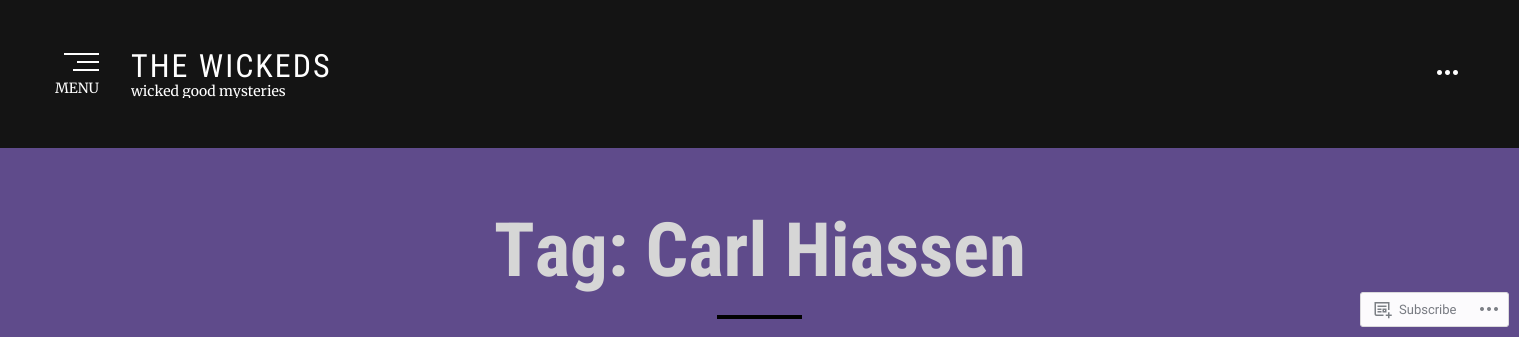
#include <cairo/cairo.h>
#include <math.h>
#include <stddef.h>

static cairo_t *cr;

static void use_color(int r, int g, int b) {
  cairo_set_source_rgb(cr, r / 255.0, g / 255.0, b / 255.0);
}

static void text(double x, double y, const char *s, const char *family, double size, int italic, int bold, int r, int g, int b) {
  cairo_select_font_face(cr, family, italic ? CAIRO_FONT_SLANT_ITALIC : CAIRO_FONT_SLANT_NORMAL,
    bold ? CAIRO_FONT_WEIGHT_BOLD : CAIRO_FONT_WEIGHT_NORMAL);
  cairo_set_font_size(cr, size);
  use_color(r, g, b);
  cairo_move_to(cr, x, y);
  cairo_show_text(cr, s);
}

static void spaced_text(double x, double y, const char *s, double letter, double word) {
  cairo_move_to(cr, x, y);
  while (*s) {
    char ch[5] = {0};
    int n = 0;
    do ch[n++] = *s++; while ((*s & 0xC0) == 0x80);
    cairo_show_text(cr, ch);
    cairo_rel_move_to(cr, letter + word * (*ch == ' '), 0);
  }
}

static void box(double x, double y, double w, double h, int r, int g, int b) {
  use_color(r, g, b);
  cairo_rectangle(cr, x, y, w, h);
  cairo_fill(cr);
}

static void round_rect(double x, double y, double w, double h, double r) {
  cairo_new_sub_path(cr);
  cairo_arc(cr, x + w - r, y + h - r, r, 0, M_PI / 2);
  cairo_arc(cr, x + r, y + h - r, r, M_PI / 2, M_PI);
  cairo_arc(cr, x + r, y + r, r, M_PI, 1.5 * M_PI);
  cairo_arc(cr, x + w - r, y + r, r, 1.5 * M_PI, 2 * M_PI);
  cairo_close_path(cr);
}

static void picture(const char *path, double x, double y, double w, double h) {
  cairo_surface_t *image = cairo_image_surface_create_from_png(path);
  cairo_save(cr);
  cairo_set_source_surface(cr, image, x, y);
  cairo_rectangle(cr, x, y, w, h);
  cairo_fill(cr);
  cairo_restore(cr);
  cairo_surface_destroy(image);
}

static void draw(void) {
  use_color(95, 75, 139);
  cairo_paint(cr);
  box(0, 0, 1519, 148, 20, 20, 20);
  use_color(255, 255, 255);
  cairo_arc(cr, 1455.5, 72.5, 2.5, 0, 2 * M_PI);
  cairo_fill(cr);
  cairo_arc(cr, 1439.5, 72.5, 2.5, 0, 2 * M_PI);
  cairo_fill(cr);
  cairo_arc(cr, 1447.5, 72.5, 2.5, 0, 2 * M_PI);
  cairo_fill(cr);
  box(64, 53, 35, 2, 255, 255, 255);
  box(77, 61, 22, 2, 255, 255, 255);
  box(73, 69, 26, 2, 255, 255, 255);
  box(717, 315, 85, 4, 2, 2, 2);
  use_color(252, 251, 253);
  round_rect(1360.5, 292.5, 148, 34, 2.5);
  cairo_fill_preserve(cr);
  use_color(218, 217, 220);
  cairo_set_line_width(cr, 1);
  cairo_stroke(cr);
  picture("img_01.png", 1374, 302, 18, 17);
  picture("img_02.png", 1480, 307, 18, 4);
  cairo_select_font_face(cr, "Roboto Condensed", CAIRO_FONT_SLANT_NORMAL, CAIRO_FONT_WEIGHT_NORMAL);
  cairo_set_font_size(cr, 32);
  use_color(255, 255, 255);
  spaced_text(131, 77, "THE WICKEDS", 2, 0);
  cairo_save(cr);
  cairo_rectangle(cr, 131, 50, 1297, 48);
  cairo_clip(cr);
  text(131, 96, "wicked good mysteries", "Merriweather", 14, 0, 0, 255, 255, 255);
  cairo_restore(cr);
  text(55, 93, "MENU", "Merriweather", 14, 0, 0, 255, 255, 255);
  text(494, 276, "Tag: Carl Hiassen", "Roboto Condensed", 75, 0, 1, 214, 214, 214);
  text(1399, 314, "Subscribe", "Roboto", 13, 0, 0, 120, 123, 130);
}

int main(void) {
  cairo_surface_t *surface = cairo_image_surface_create(CAIRO_FORMAT_RGB24, 1519, 337);
  cr = cairo_create(surface);
  cairo_font_options_t *options = cairo_font_options_create();
  cairo_font_options_set_hint_metrics(options, CAIRO_HINT_METRICS_OFF);
  cairo_font_options_set_hint_style(options, CAIRO_HINT_STYLE_NONE);
  cairo_set_font_options(cr, options);
  cairo_set_miter_limit(cr, 4);
  draw();
  cairo_surface_write_to_png(surface, "out.png");
  cairo_font_options_destroy(options);
  cairo_destroy(cr);
  cairo_surface_destroy(surface);
  return 0;
}
